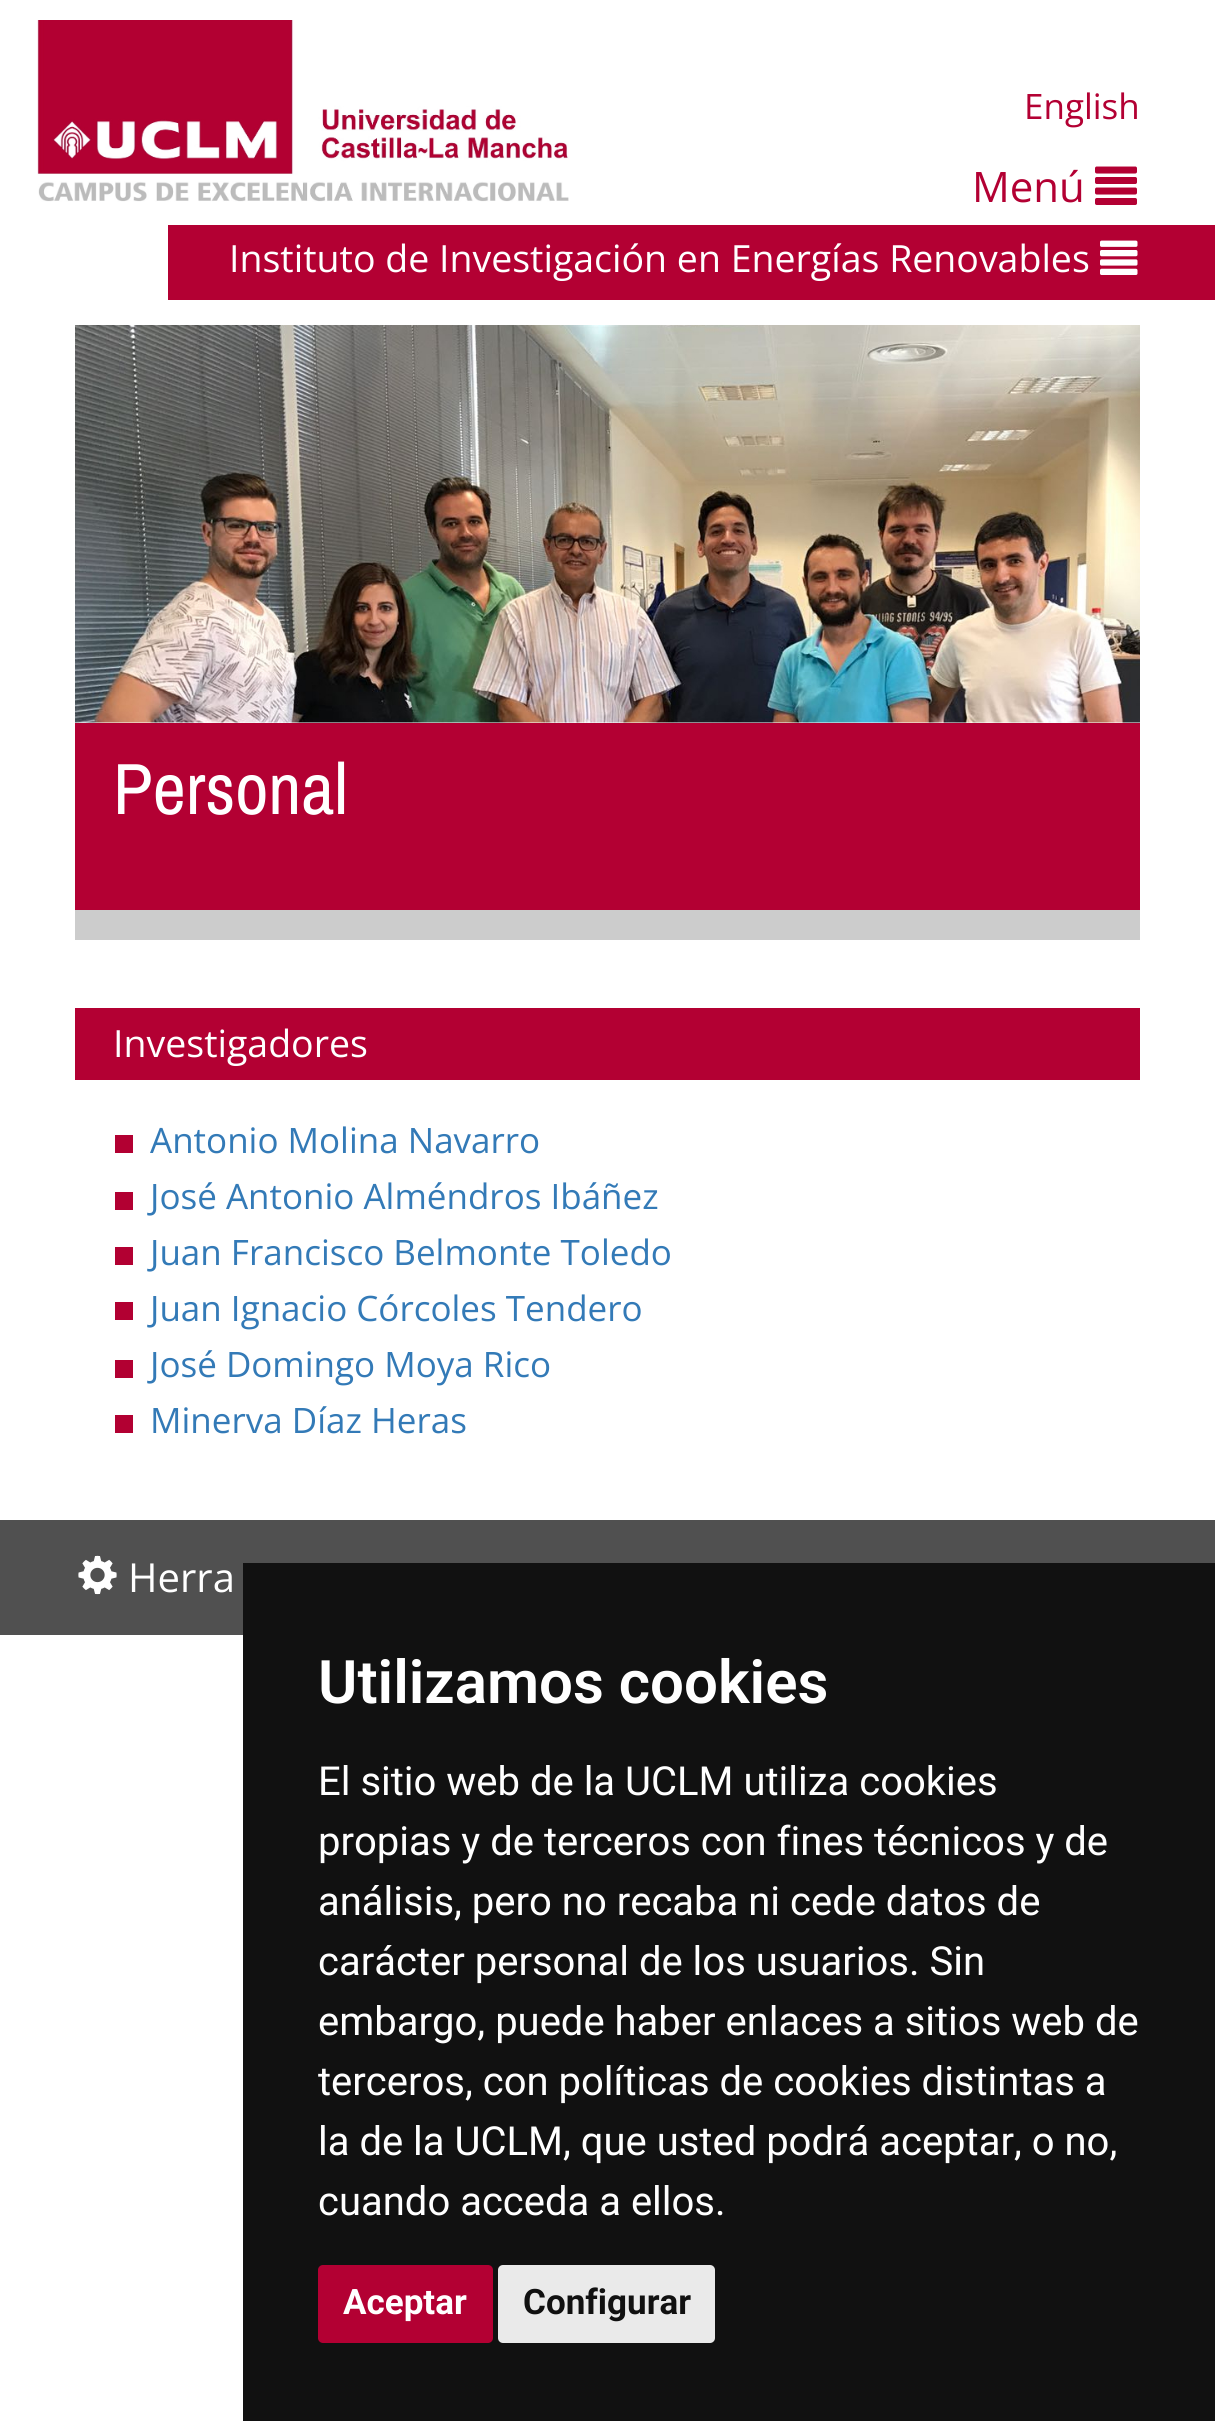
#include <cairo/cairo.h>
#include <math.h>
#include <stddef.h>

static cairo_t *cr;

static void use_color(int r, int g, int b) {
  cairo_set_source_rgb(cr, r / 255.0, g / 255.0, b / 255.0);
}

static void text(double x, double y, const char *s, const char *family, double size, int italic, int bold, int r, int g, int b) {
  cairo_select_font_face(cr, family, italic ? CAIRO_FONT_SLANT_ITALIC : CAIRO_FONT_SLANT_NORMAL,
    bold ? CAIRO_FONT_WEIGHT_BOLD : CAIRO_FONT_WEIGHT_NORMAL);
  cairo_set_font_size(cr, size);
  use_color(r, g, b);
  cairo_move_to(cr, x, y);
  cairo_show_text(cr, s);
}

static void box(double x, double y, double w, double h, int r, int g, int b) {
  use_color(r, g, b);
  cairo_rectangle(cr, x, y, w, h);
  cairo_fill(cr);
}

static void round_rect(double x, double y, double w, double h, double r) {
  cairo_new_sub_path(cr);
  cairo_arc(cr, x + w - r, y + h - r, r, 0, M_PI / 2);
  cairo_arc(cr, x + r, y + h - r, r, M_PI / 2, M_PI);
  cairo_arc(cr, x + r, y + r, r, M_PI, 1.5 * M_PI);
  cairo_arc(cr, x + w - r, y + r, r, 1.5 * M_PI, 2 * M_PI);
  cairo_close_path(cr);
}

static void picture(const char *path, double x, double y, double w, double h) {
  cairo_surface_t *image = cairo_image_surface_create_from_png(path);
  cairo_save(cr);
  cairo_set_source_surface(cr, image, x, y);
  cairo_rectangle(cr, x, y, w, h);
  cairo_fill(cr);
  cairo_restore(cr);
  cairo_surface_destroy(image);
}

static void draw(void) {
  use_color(255, 255, 255);
  cairo_paint(cr);
  picture("img_01.png", 37, 20, 532, 182);
  picture("img_02.png", 1095, 166, 42, 39);
  box(168, 225, 1047, 75, 179, 0, 51);
  picture("img_03.png", 1100, 240, 38, 35);
  picture("img_04.png", 75, 325, 1065, 398);
  box(75, 723, 1065, 187, 179, 0, 51);
  box(75, 910, 1065, 30, 204, 204, 204);
  box(75, 1008, 1065, 72, 179, 0, 51);
  box(115, 1135, 18, 18, 178, 0, 50);
  box(115, 1192, 18, 18, 178, 0, 50);
  box(115, 1247, 18, 18, 178, 0, 50);
  box(115, 1302, 18, 18, 178, 0, 50);
  box(115, 1360, 18, 18, 178, 0, 50);
  box(115, 1415, 18, 18, 178, 0, 50);
  box(0, 1520, 1215, 115, 80, 80, 80);
  picture("img_05.png", 78, 1555, 39, 40);
  box(243, 1563, 972, 858, 17, 17, 17);
  use_color(179, 0, 51);
  round_rect(318, 2265, 175, 78, 5);
  cairo_fill(cr);
  use_color(234, 234, 234);
  round_rect(498, 2265, 217, 78, 5);
  cairo_fill(cr);
  text(1024, 119, "English", "Open Sans", 35, 0, 0, 179, 0, 51);
  text(972, 202, "Menú", "Open Sans", 42, 0, 0, 179, 0, 51);
  text(229, 272, "Instituto de Investigación en Energías Renovables", "Open Sans", 37.5, 0, 0, 255, 255, 255);
  text(113, 814, "Personal", "Archivo Narrow", 72.5, 0, 0, 255, 255, 255);
  text(113, 1057, "Investigadores", "Open Sans", 37.5, 0, 0, 255, 255, 255);
  text(150, 1153, "Antonio Molina Navarro", "Open Sans", 35, 0, 0, 51, 122, 183);
  text(150, 1209, "José Antonio Alméndros Ibáñez", "Open Sans", 35, 0, 0, 51, 122, 183);
  text(150, 1265, "Juan Francisco Belmonte Toledo", "Open Sans", 35, 0, 0, 51, 122, 183);
  text(150, 1321, "Juan Ignacio Córcoles Tendero", "Open Sans", 35, 0, 0, 51, 122, 183);
  text(150, 1377, "José Domingo Moya Rico", "Open Sans", 35, 0, 0, 51, 122, 183);
  text(150, 1433, "Minerva Díaz Heras", "Open Sans", 35, 0, 0, 51, 122, 183);
  text(128, 1592, "Herra", "Open Sans", 40, 0, 0, 255, 255, 255);
  text(318, 1703, "Utilizamos cookies", "Roboto SemiBold", 60, 0, 0, 255, 255, 255);
  text(318, 1795, "El sitio web de la UCLM utiliza cookies", "Roboto", 40, 0, 0, 255, 255, 255);
  text(318, 1855, "propias y de terceros con fines técnicos y de", "Roboto", 40, 0, 0, 255, 255, 255);
  text(318, 1915, "análisis, pero no recaba ni cede datos de", "Roboto", 40, 0, 0, 255, 255, 255);
  text(318, 1975, "carácter personal de los usuarios. Sin", "Roboto", 40, 0, 0, 255, 255, 255);
  text(318, 2035, "embargo, puede haber enlaces a sitios web de", "Roboto", 40, 0, 0, 255, 255, 255);
  text(318, 2095, "terceros, con políticas de cookies distintas a", "Roboto", 40, 0, 0, 255, 255, 255);
  text(318, 2155, "la de la UCLM, que usted podrá aceptar, o no,", "Roboto", 40, 0, 0, 255, 255, 255);
  text(318, 2215, "cuando acceda a ellos.", "Roboto", 40, 0, 0, 255, 255, 255);
  text(343, 2314, "Aceptar", "Roboto", 35, 0, 1, 255, 255, 255);
  text(523, 2314, "Configurar", "Roboto", 35, 0, 1, 17, 17, 17);
}

int main(void) {
  cairo_surface_t *surface = cairo_image_surface_create(CAIRO_FORMAT_RGB24, 1215, 2421);
  cr = cairo_create(surface);
  cairo_font_options_t *options = cairo_font_options_create();
  cairo_font_options_set_hint_metrics(options, CAIRO_HINT_METRICS_OFF);
  cairo_font_options_set_hint_style(options, CAIRO_HINT_STYLE_NONE);
  cairo_set_font_options(cr, options);
  cairo_set_miter_limit(cr, 4);
  draw();
  cairo_surface_write_to_png(surface, "out.png");
  cairo_font_options_destroy(options);
  cairo_destroy(cr);
  cairo_surface_destroy(surface);
  return 0;
}
